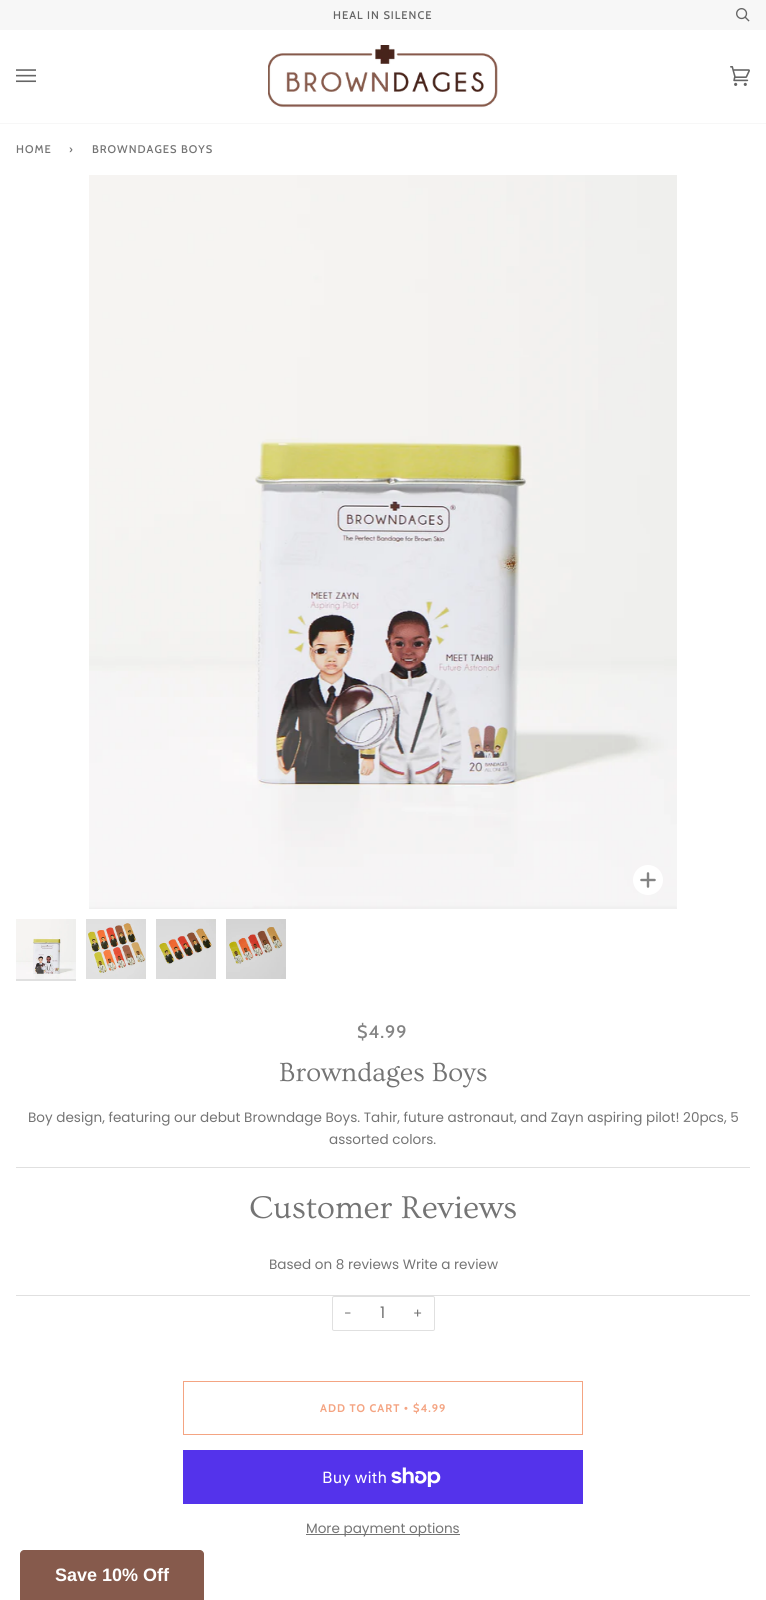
#include <cairo/cairo.h>
#include <math.h>
#include <stddef.h>

static cairo_t *cr;

static void use_color(int r, int g, int b) {
  cairo_set_source_rgb(cr, r / 255.0, g / 255.0, b / 255.0);
}

static void text(double x, double y, const char *s, const char *family, double size, int italic, int bold, int r, int g, int b) {
  cairo_select_font_face(cr, family, italic ? CAIRO_FONT_SLANT_ITALIC : CAIRO_FONT_SLANT_NORMAL,
    bold ? CAIRO_FONT_WEIGHT_BOLD : CAIRO_FONT_WEIGHT_NORMAL);
  cairo_set_font_size(cr, size);
  use_color(r, g, b);
  cairo_move_to(cr, x, y);
  cairo_show_text(cr, s);
}

static void spaced_text(double x, double y, const char *s, double letter, double word) {
  cairo_move_to(cr, x, y);
  while (*s) {
    char ch[5] = {0};
    int n = 0;
    do ch[n++] = *s++; while ((*s & 0xC0) == 0x80);
    cairo_show_text(cr, ch);
    cairo_rel_move_to(cr, letter + word * (*ch == ' '), 0);
  }
}

static void box(double x, double y, double w, double h, int r, int g, int b) {
  use_color(r, g, b);
  cairo_rectangle(cr, x, y, w, h);
  cairo_fill(cr);
}

static void round_rect(double x, double y, double w, double h, double r) {
  cairo_new_sub_path(cr);
  cairo_arc(cr, x + w - r, y + h - r, r, 0, M_PI / 2);
  cairo_arc(cr, x + r, y + h - r, r, M_PI / 2, M_PI);
  cairo_arc(cr, x + r, y + r, r, M_PI, 1.5 * M_PI);
  cairo_arc(cr, x + w - r, y + r, r, 1.5 * M_PI, 2 * M_PI);
  cairo_close_path(cr);
}

static void picture(const char *path, double x, double y, double w, double h) {
  cairo_surface_t *image = cairo_image_surface_create_from_png(path);
  cairo_save(cr);
  cairo_set_source_surface(cr, image, x, y);
  cairo_rectangle(cr, x, y, w, h);
  cairo_fill(cr);
  cairo_restore(cr);
  cairo_surface_destroy(image);
}

static void draw(void) {
  use_color(255, 255, 255);
  cairo_paint(cr);
  box(0, 0, 766, 30, 247, 247, 247);
  picture("img_01.png", 736, 8, 14, 14);
  box(0, 123, 766, 1, 247, 247, 247);
  picture("img_02.png", 16, 69, 20, 14);
  picture("img_03.png", 268, 45, 230, 63);
  picture("img_04.png", 730, 66, 20, 20);
  picture("img_05.png", 676, 175, 1, 734);
  picture("img_06.png", 89, 175, 588, 734);
  picture("img_07.png", 633, 865, 30, 30);
  picture("img_08.png", 16, 919, 60, 60);
  box(16, 979, 60, 2, 224, 224, 224);
  picture("img_09.png", 86, 919, 60, 60);
  picture("img_10.png", 156, 919, 60, 60);
  picture("img_11.png", 226, 919, 60, 60);
  box(16, 1167, 734, 1, 224, 224, 224);
  box(16, 1295, 734, 1, 224, 224, 224);
  round_rect(332.5, 1296.5, 102, 34, 1.5);
  cairo_set_line_width(cr, 1);
  cairo_stroke(cr);
  cairo_rectangle(cr, 183.5, 1381.5, 399, 53);
  use_color(244, 164, 130);
  cairo_stroke(cr);
  box(183, 1450, 400, 54, 84, 51, 235);
  picture("img_12.png", 391, 1467, 50, 20);
  box(306, 1534, 154, 1, 116, 116, 116);
  use_color(134, 90, 76);
  cairo_new_path(cr);
  cairo_move_to(cr, 24, 1550);
  cairo_line_to(cr, 200, 1550);
  cairo_curve_to(cr, 202, 1550, 204, 1552, 204, 1554);
  cairo_line_to(cr, 204, 1600);
  cairo_line_to(cr, 20, 1600);
  cairo_line_to(cr, 20, 1554);
  cairo_curve_to(cr, 20, 1552, 22, 1550, 24, 1550);
  cairo_close_path(cr);
  cairo_fill(cr);
  cairo_select_font_face(cr, "Cabin Medium", CAIRO_FONT_SLANT_NORMAL, CAIRO_FONT_WEIGHT_NORMAL);
  cairo_set_font_size(cr, 11.1);
  use_color(101, 101, 101);
  spaced_text(333, 19, "HEAL IN SILENCE", 1, 0);
  use_color(116, 116, 116);
  spaced_text(16, 153, "HOME", 1, 0);
  spaced_text(69, 153, "›", 1, 0);
  spaced_text(92, 153, "BROWNDAGES BOYS", 1, 0);
  cairo_set_font_size(cr, 18);
  use_color(132, 132, 132);
  spaced_text(357, 1038, "$4.99", 1, 0);
  text(279, 1081, "Browndages Boys", "Ovo", 27.5, 0, 0, 116, 116, 116);
  text(28, 1122, "Boy design, featuring our debut Browndage Boys. Tahir, future astronaut, and Zayn aspiring pilot! 20pcs, 5", "Poppins", 13.57, 0, 0, 116, 116, 116);
  text(329, 1144, "assorted colors.", "Poppins", 13.57, 0, 0, 116, 116, 116);
  text(249, 1218, "Customer Reviews", "Ovo", 33, 0, 0, 116, 116, 116);
  text(269, 1269, "Based on 8 reviews Write a review", "Poppins", 13.57, 0, 0, 116, 116, 116);
  text(344, 1318, "−", "Poppins", 13.57, 0, 0, 116, 116, 116);
  text(380, 1318, "1", "Poppins", 16, 0, 0, 116, 116, 116);
  text(413, 1318, "+", "Poppins", 13.57, 0, 0, 116, 116, 116);
  cairo_select_font_face(cr, "Cabin", CAIRO_FONT_SLANT_NORMAL, CAIRO_FONT_WEIGHT_BOLD);
  cairo_set_font_size(cr, 11.1);
  use_color(244, 164, 130);
  spaced_text(320, 1412, "ADD TO CART", 1, 0);
  cairo_select_font_face(cr, "Liberation Serif", CAIRO_FONT_SLANT_NORMAL, CAIRO_FONT_WEIGHT_BOLD);
  spaced_text(404, 1412, "•", 1, 0);
  cairo_select_font_face(cr, "Cabin", CAIRO_FONT_SLANT_NORMAL, CAIRO_FONT_WEIGHT_BOLD);
  spaced_text(413, 1412, "$4.99", 1, 0);
  text(322, 1483, "Buy with", "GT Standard", 16, 0, 0, 255, 255, 255);
  text(306, 1533, "More payment options", "Poppins", 13.57, 0, 0, 116, 116, 116);
  text(55, 1581, "Save 10% Off", "Liberation Sans", 18, 0, 1, 255, 255, 255);
}

int main(void) {
  cairo_surface_t *surface = cairo_image_surface_create(CAIRO_FORMAT_RGB24, 766, 1600);
  cr = cairo_create(surface);
  cairo_font_options_t *options = cairo_font_options_create();
  cairo_font_options_set_hint_metrics(options, CAIRO_HINT_METRICS_OFF);
  cairo_font_options_set_hint_style(options, CAIRO_HINT_STYLE_NONE);
  cairo_set_font_options(cr, options);
  cairo_set_miter_limit(cr, 4);
  draw();
  cairo_surface_write_to_png(surface, "out.png");
  cairo_font_options_destroy(options);
  cairo_destroy(cr);
  cairo_surface_destroy(surface);
  return 0;
}
